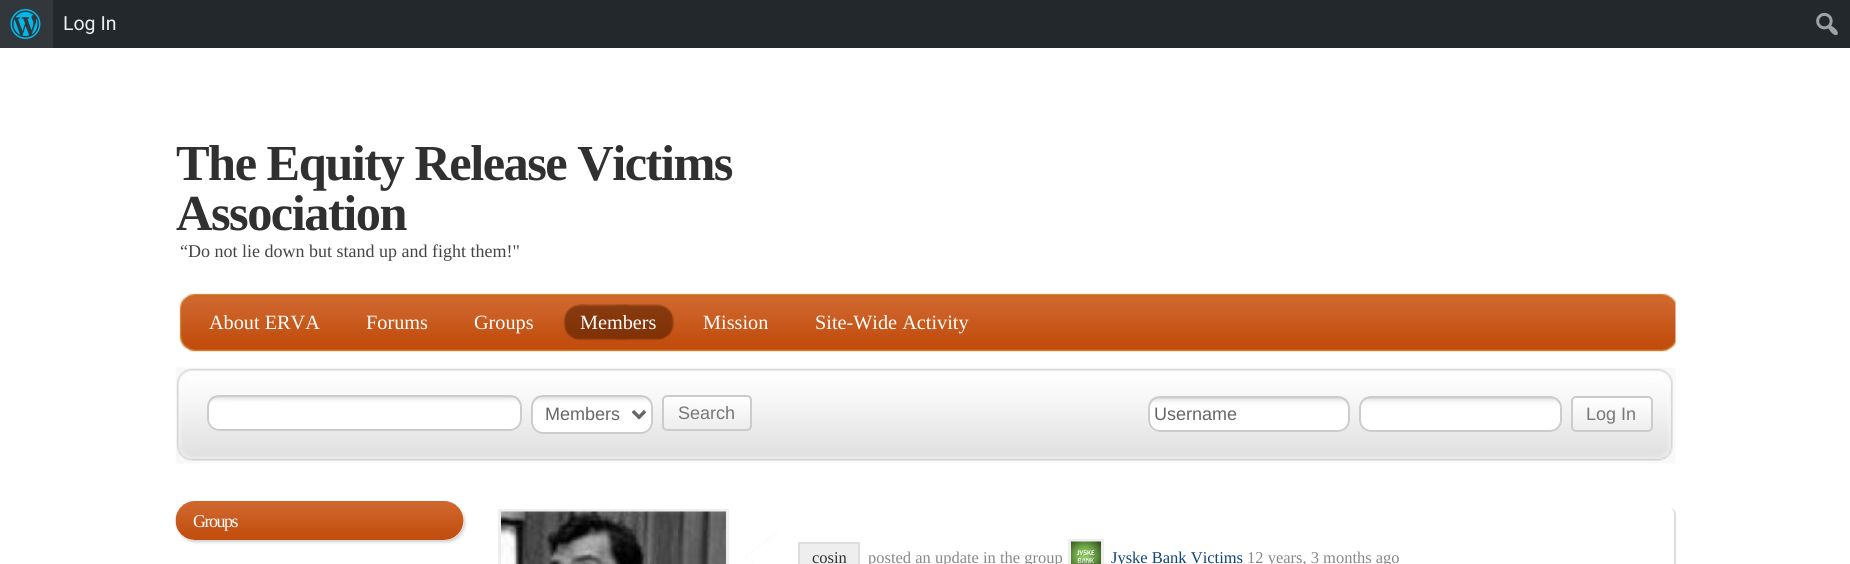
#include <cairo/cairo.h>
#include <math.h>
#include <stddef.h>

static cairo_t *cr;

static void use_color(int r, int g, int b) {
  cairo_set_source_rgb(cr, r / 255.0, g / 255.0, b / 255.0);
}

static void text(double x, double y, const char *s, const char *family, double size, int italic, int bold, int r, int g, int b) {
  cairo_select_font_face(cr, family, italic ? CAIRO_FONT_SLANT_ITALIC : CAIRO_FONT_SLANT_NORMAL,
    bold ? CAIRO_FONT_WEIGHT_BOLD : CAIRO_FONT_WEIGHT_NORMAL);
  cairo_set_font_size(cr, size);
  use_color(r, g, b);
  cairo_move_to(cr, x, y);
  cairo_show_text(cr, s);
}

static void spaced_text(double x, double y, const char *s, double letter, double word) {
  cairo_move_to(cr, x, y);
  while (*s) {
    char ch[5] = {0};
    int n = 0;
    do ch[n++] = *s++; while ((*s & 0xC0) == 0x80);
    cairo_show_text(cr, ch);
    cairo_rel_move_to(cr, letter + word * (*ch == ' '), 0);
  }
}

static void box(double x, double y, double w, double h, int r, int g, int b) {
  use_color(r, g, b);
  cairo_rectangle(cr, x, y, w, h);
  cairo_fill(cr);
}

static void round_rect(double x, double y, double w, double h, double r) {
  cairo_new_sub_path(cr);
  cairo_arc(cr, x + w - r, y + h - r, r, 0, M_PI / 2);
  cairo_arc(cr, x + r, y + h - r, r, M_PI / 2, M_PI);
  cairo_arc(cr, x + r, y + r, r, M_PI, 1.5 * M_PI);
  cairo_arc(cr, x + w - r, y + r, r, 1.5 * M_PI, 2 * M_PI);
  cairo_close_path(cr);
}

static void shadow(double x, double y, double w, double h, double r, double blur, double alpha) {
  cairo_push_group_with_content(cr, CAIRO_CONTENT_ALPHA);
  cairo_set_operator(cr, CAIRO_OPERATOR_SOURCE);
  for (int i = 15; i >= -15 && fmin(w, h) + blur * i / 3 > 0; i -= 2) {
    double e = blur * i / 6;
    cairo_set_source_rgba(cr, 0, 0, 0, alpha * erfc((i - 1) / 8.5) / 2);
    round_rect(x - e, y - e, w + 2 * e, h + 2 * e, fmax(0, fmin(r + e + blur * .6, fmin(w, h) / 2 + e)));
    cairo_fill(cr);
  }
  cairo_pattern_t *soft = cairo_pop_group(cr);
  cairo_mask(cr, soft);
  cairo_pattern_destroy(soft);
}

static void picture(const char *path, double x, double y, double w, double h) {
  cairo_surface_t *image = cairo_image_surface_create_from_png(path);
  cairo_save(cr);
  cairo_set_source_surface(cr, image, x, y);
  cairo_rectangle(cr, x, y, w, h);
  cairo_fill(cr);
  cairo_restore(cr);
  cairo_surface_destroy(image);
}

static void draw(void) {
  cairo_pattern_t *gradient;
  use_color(255, 255, 255);
  cairo_paint(cr);
  box(53, 0, 1797, 48, 35, 40, 45);
  box(0, 0, 53, 48, 50, 55, 60);
  picture("img_01.png", 10, 9, 31, 30);
  picture("img_02.png", 1816, 12, 22, 24);
  picture("img_03.png", 179, 293, 1497, 59);
  picture("img_04.png", 563, 304, 24, 37);
  picture("img_05.png", 580, 304, 94, 37);
  picture("img_06.png", 175, 367, 1501, 97);
  use_color(255, 255, 255);
  round_rect(207, 395, 315, 36, 12);
  cairo_fill(cr);
  picture("img_07.png", 209, 396, 311, 6);
  round_rect(208, 396, 313, 34, 11);
  use_color(204, 204, 204);
  cairo_stroke(cr);
  use_color(255, 255, 255);
  round_rect(531, 395, 122, 39, 12);
  cairo_fill(cr);
  picture("img_08.png", 533, 396, 118, 23);
  round_rect(532, 396, 120, 37, 11);
  use_color(204, 204, 204);
  cairo_stroke(cr);
  cairo_new_path(cr);
  cairo_move_to(cr, 633, 411.5);
  cairo_line_to(cr, 639, 417.5);
  cairo_line_to(cr, 645, 411.5);
  use_color(102, 102, 102);
  cairo_set_line_width(cr, 3);
  cairo_stroke(cr);
  cairo_save(cr);
  round_rect(662, 395, 90, 36, 5);
  cairo_clip(cr);
  gradient = cairo_pattern_create_linear(707, 396, 707, 429);
  cairo_pattern_add_color_stop_rgba(gradient, 0, 1, 1, 1, 1);
  cairo_pattern_add_color_stop_rgba(gradient, 1, 0.929, 0.929, 0.929, 1);
  cairo_set_source(cr, gradient);
  cairo_pattern_destroy(gradient);
  cairo_rectangle(cr, 662, 396, 90, 33);
  cairo_fill(cr);
  cairo_restore(cr);
  round_rect(663, 396, 88, 34, 4);
  use_color(204, 204, 204);
  cairo_set_line_width(cr, 2);
  cairo_stroke(cr);
  picture("img_09.png", 1147, 397, 203, 35);
  round_rect(1149, 397, 200, 34, 11);
  cairo_stroke(cr);
  picture("img_10.png", 1359, 397, 201, 35);
  round_rect(1360, 397, 201, 34, 11);
  cairo_stroke(cr);
  cairo_save(cr);
  round_rect(1571, 396, 82, 36, 5);
  cairo_clip(cr);
  gradient = cairo_pattern_create_linear(1612, 398, 1612, 431);
  cairo_pattern_add_color_stop_rgba(gradient, 0, 1, 1, 1, 1);
  cairo_pattern_add_color_stop_rgba(gradient, 1, 0.929, 0.929, 0.929, 1);
  cairo_set_source(cr, gradient);
  cairo_pattern_destroy(gradient);
  cairo_rectangle(cr, 1571, 398, 82, 33);
  cairo_fill(cr);
  cairo_restore(cr);
  round_rect(1572, 397, 80, 34, 4);
  cairo_stroke(cr);
  cairo_save(cr);
  cairo_set_fill_rule(cr, CAIRO_FILL_RULE_EVEN_ODD);
  cairo_new_path(cr);
  cairo_move_to(cr, 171, 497);
  cairo_line_to(cr, 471, 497);
  cairo_line_to(cr, 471, 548);
  cairo_line_to(cr, 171, 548);
  cairo_close_path(cr);
  cairo_move_to(cr, 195.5, 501);
  cairo_line_to(cr, 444.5, 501);
  cairo_curve_to(cr, 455.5, 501, 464, 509.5, 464, 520.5);
  cairo_curve_to(cr, 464, 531.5, 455.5, 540, 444.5, 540);
  cairo_line_to(cr, 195.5, 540);
  cairo_curve_to(cr, 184.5, 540, 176, 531.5, 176, 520.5);
  cairo_curve_to(cr, 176, 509.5, 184.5, 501, 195.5, 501);
  cairo_close_path(cr);
  cairo_clip(cr);
  use_color(204, 204, 204);
  shadow(177, 503, 288, 39, 19.5, 1.5, 1);
  cairo_restore(cr);
  picture("img_11.png", 175, 501, 289, 39);
  cairo_rectangle(cr, 499.5, 510.5, 228, 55);
  use_color(238, 238, 238);
  cairo_set_line_width(cr, 3);
  cairo_stroke(cr);
  picture("img_12.png", 501, 511, 225, 53);
  use_color(221, 221, 221);
  cairo_set_fill_rule(cr, CAIRO_FILL_RULE_EVEN_ODD);
  cairo_new_path(cr);
  cairo_move_to(cr, 782, 508);
  cairo_line_to(cr, 1670, 508);
  cairo_curve_to(cr, 1673, 508, 1676, 511, 1676, 514);
  cairo_line_to(cr, 1676, 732);
  cairo_curve_to(cr, 1676, 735, 1673, 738, 1670, 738);
  cairo_line_to(cr, 782, 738);
  cairo_curve_to(cr, 778, 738, 776, 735, 776, 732);
  cairo_line_to(cr, 776, 514);
  cairo_curve_to(cr, 776, 511, 778, 508, 782, 508);
  cairo_close_path(cr);
  cairo_move_to(cr, 782, 508);
  cairo_line_to(cr, 1670, 508);
  cairo_curve_to(cr, 1672, 508, 1674, 511, 1674, 514);
  cairo_line_to(cr, 1674, 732);
  cairo_curve_to(cr, 1674, 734, 1672, 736, 1670, 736);
  cairo_line_to(cr, 782, 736);
  cairo_curve_to(cr, 778, 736, 776, 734, 776, 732);
  cairo_line_to(cr, 776, 514);
  cairo_curve_to(cr, 776, 511, 778, 508, 782, 508);
  cairo_close_path(cr);
  cairo_fill(cr);
  picture("img_13.png", 745, 531, 33, 33);
  cairo_rectangle(cr, 1069.5, 540.5, 33, 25);
  use_color(238, 238, 238);
  cairo_stroke(cr);
  cairo_rectangle(cr, 799, 543, 60, 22);
  cairo_fill_preserve(cr);
  use_color(221, 221, 221);
  cairo_set_line_width(cr, 2);
  cairo_stroke(cr);
  picture("img_14.png", 1071, 541, 30, 23);
  text(63, 30, "Log In", "Roboto", 19.5, 0, 0, 238, 238, 238);
  cairo_select_font_face(cr, "Liberation Serif", CAIRO_FONT_SLANT_NORMAL, CAIRO_FONT_WEIGHT_BOLD);
  cairo_set_font_size(cr, 50.4);
  use_color(48, 48, 48);
  spaced_text(176, 180, "The Equity Release Victims", -1.5, 0);
  spaced_text(176, 230, "Association", -1.5, 0);
  text(180, 257, "“Do not lie down but stand up and fight them!\"", "Liberation Serif", 18, 0, 0, 68, 68, 68);
  text(209, 329, "About ERVA", "Liberation Serif", 20.25, 0, 0, 255, 255, 255);
  text(366, 329, "Forums", "Liberation Serif", 20.25, 0, 0, 255, 255, 255);
  text(474, 329, "Groups", "Liberation Serif", 20.25, 0, 0, 255, 255, 255);
  text(580, 329, "Members", "Liberation Serif", 20.25, 0, 0, 255, 255, 255);
  text(703, 329, "Mission", "Liberation Serif", 20.25, 0, 0, 255, 255, 255);
  text(815, 329, "Site-Wide Activity", "Liberation Serif", 20.25, 0, 0, 255, 255, 255);
  text(545, 420, "Members", "Liberation Sans", 18, 0, 0, 102, 102, 102);
  text(678, 419, "Search", "Liberation Sans", 18, 0, 0, 119, 119, 119);
  text(1154, 420, "Username", "Liberation Sans", 18, 0, 0, 102, 102, 102);
  text(1586, 420, "Log In", "Liberation Sans", 18, 0, 0, 119, 119, 119);
  cairo_select_font_face(cr, "Liberation Serif", CAIRO_FONT_SLANT_NORMAL, CAIRO_FONT_WEIGHT_NORMAL);
  use_color(255, 255, 255);
  spaced_text(193, 527, "Groups", -1.5, 0);
  text(812, 563, "cosin", "Liberation Serif", 16.5, 0, 0, 48, 48, 48);
  text(868, 563, "posted an update in the group", "Liberation Serif", 16.5, 0, 0, 136, 136, 136);
  text(1111, 563, "Jyske Bank Victims", "Liberation Serif", 16.5, 0, 0, 15, 68, 122);
  text(1247, 563, "12 years, 3 months ago", "Liberation Serif", 16.5, 0, 0, 136, 136, 136);
}

int main(void) {
  cairo_surface_t *surface = cairo_image_surface_create(CAIRO_FORMAT_RGB24, 1850, 564);
  cr = cairo_create(surface);
  cairo_font_options_t *options = cairo_font_options_create();
  cairo_font_options_set_hint_metrics(options, CAIRO_HINT_METRICS_OFF);
  cairo_font_options_set_hint_style(options, CAIRO_HINT_STYLE_NONE);
  cairo_set_font_options(cr, options);
  cairo_set_miter_limit(cr, 4);
  draw();
  cairo_surface_write_to_png(surface, "out.png");
  cairo_font_options_destroy(options);
  cairo_destroy(cr);
  cairo_surface_destroy(surface);
  return 0;
}
